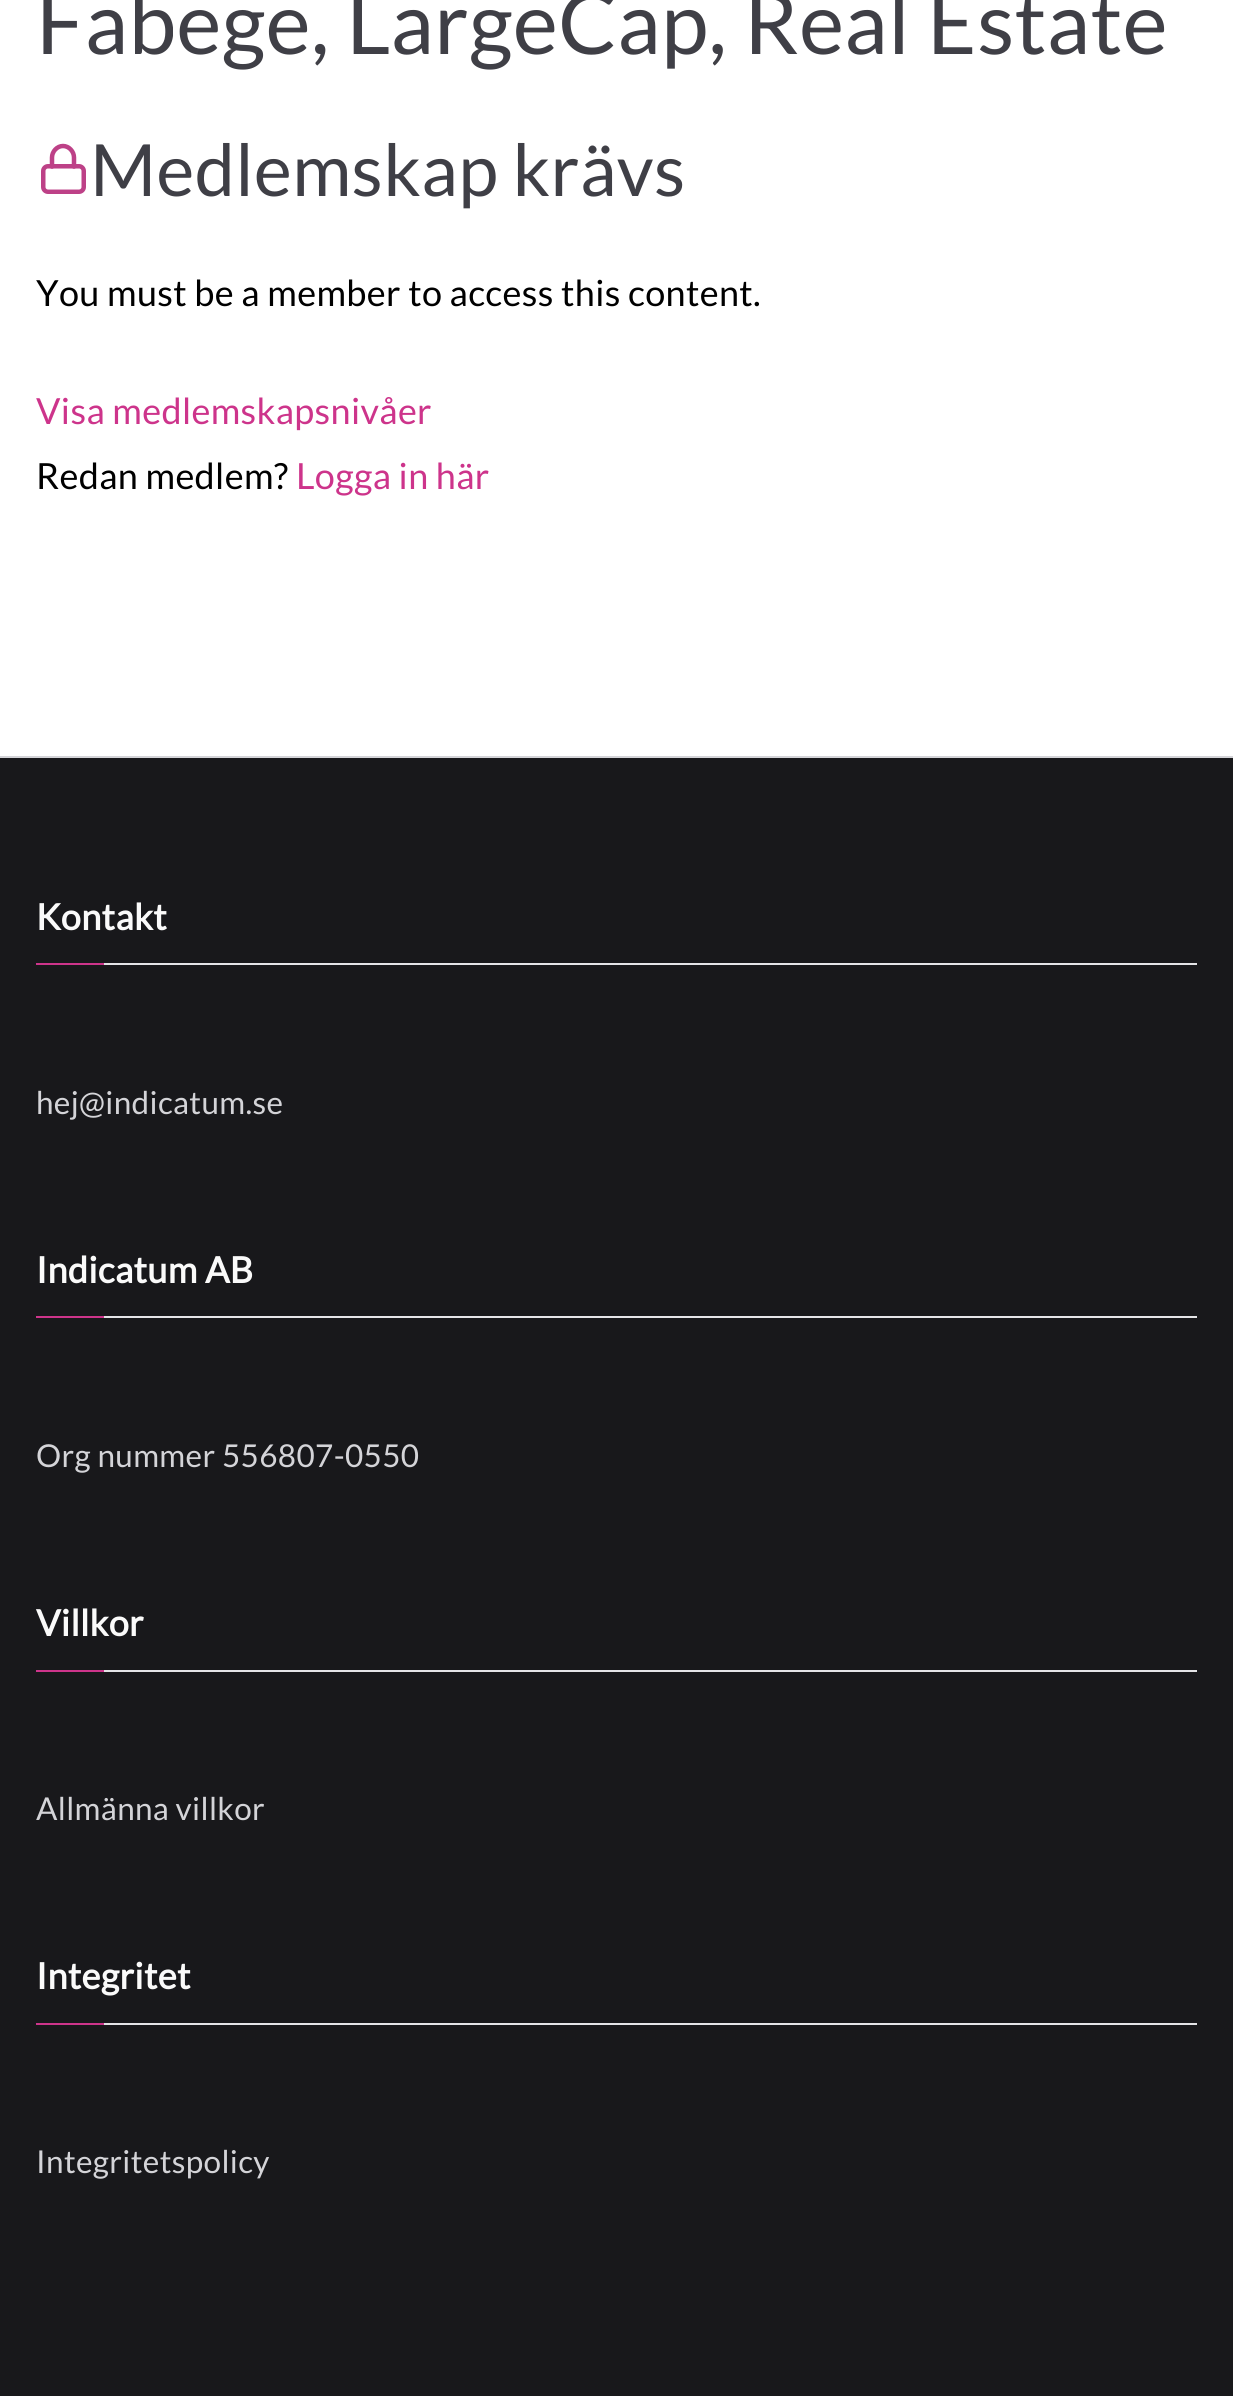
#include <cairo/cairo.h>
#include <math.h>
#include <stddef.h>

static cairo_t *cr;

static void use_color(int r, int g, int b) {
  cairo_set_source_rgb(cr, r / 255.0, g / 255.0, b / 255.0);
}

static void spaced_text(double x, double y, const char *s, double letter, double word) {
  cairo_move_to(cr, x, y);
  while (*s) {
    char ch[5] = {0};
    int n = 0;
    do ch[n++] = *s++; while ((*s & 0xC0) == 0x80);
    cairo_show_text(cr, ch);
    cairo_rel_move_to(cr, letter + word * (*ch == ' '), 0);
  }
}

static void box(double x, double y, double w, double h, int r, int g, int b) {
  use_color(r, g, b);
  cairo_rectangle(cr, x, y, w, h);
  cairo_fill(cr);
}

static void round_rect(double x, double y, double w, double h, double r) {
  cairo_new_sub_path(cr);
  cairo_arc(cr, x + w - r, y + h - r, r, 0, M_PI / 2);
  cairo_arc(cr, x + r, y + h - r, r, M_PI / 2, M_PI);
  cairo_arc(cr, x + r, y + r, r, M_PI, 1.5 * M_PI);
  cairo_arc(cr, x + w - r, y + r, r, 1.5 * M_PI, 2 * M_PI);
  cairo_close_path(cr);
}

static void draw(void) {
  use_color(255, 255, 255);
  cairo_paint(cr);
  round_rect(43.25, 166.25, 40.5, 25.5, 4.75);
  use_color(189, 65, 135);
  cairo_set_line_width(cr, 4.5);
  cairo_stroke(cr);
  cairo_new_path(cr);
  cairo_move_to(cr, 52, 166.5);
  cairo_line_to(cr, 52, 157.5);
  cairo_curve_to(cr, 52, 151.5, 57, 146, 63, 146);
  cairo_curve_to(cr, 69, 146, 74, 151.5, 74, 157.5);
  cairo_line_to(cr, 74, 166.5);
  cairo_set_line_cap(cr, CAIRO_LINE_CAP_ROUND);
  cairo_set_line_join(cr, CAIRO_LINE_JOIN_ROUND);
  cairo_stroke(cr);
  box(0, 758, 1233, 1638, 24, 24, 27);
  box(0, 756, 1233, 2, 212, 212, 216);
  box(104, 963, 1093, 2, 228, 228, 231);
  box(36, 963, 68, 2, 205, 52, 139);
  box(104, 1316, 1093, 2, 228, 228, 231);
  box(36, 1316, 68, 2, 205, 52, 139);
  box(104, 1670, 1093, 2, 228, 228, 231);
  box(36, 1670, 68, 2, 205, 52, 139);
  box(104, 2023, 1093, 2, 228, 228, 231);
  box(36, 2023, 68, 2, 205, 52, 139);
  cairo_select_font_face(cr, "Lato", CAIRO_FONT_SLANT_NORMAL, CAIRO_FONT_WEIGHT_NORMAL);
  cairo_set_font_size(cr, 85.5);
  use_color(63, 63, 70);
  spaced_text(36, 54, "Fabege, LargeCap, Real Estate", 0.35, 0);
  cairo_set_font_size(cr, 72);
  spaced_text(90, 196, "Medlemskap krävs", 0.35, 0);
  cairo_set_font_size(cr, 36);
  use_color(0, 0, 0);
  spaced_text(36, 306, "You must be a member to access this content.", 0.35, 0);
  use_color(205, 52, 139);
  spaced_text(36, 424, "Visa medlemskapsnivåer", 0.35, 0);
  use_color(0, 0, 0);
  spaced_text(36, 489, "Redan medlem?", 0.35, 0);
  use_color(205, 52, 139);
  spaced_text(296, 489, "Logga in här", 0.35, 0);
  cairo_select_font_face(cr, "Lato", CAIRO_FONT_SLANT_NORMAL, CAIRO_FONT_WEIGHT_BOLD);
  use_color(250, 250, 250);
  spaced_text(36, 930, "Kontakt", 0.35, 0);
  cairo_select_font_face(cr, "Lato", CAIRO_FONT_SLANT_NORMAL, CAIRO_FONT_WEIGHT_NORMAL);
  cairo_set_font_size(cr, 31.5);
  use_color(212, 212, 216);
  spaced_text(36, 1114, "hej@indicatum.se", 0.35, 0);
  cairo_select_font_face(cr, "Lato", CAIRO_FONT_SLANT_NORMAL, CAIRO_FONT_WEIGHT_BOLD);
  cairo_set_font_size(cr, 36);
  use_color(250, 250, 250);
  spaced_text(36, 1283, "Indicatum AB", 0.35, 0);
  cairo_select_font_face(cr, "Lato", CAIRO_FONT_SLANT_NORMAL, CAIRO_FONT_WEIGHT_NORMAL);
  cairo_set_font_size(cr, 31.5);
  use_color(212, 212, 216);
  spaced_text(36, 1467, "Org nummer 556807-0550", 0.35, 0);
  cairo_select_font_face(cr, "Lato", CAIRO_FONT_SLANT_NORMAL, CAIRO_FONT_WEIGHT_BOLD);
  cairo_set_font_size(cr, 36);
  use_color(250, 250, 250);
  spaced_text(36, 1636, "Villkor", 0.35, 0);
  cairo_select_font_face(cr, "Lato", CAIRO_FONT_SLANT_NORMAL, CAIRO_FONT_WEIGHT_NORMAL);
  cairo_set_font_size(cr, 31.5);
  use_color(212, 212, 216);
  spaced_text(36, 1820, "Allmänna villkor", 0.35, 0);
  cairo_select_font_face(cr, "Lato", CAIRO_FONT_SLANT_NORMAL, CAIRO_FONT_WEIGHT_BOLD);
  cairo_set_font_size(cr, 36);
  use_color(250, 250, 250);
  spaced_text(36, 1989, "Integritet", 0.35, 0);
  cairo_select_font_face(cr, "Lato", CAIRO_FONT_SLANT_NORMAL, CAIRO_FONT_WEIGHT_NORMAL);
  cairo_set_font_size(cr, 31.5);
  use_color(212, 212, 216);
  spaced_text(36, 2173, "Integritetspolicy", 0.35, 0);
}

int main(void) {
  cairo_surface_t *surface = cairo_image_surface_create(CAIRO_FORMAT_RGB24, 1233, 2396);
  cr = cairo_create(surface);
  cairo_font_options_t *options = cairo_font_options_create();
  cairo_font_options_set_hint_metrics(options, CAIRO_HINT_METRICS_OFF);
  cairo_font_options_set_hint_style(options, CAIRO_HINT_STYLE_NONE);
  cairo_set_font_options(cr, options);
  cairo_set_miter_limit(cr, 4);
  draw();
  cairo_surface_write_to_png(surface, "out.png");
  cairo_font_options_destroy(options);
  cairo_destroy(cr);
  cairo_surface_destroy(surface);
  return 0;
}
